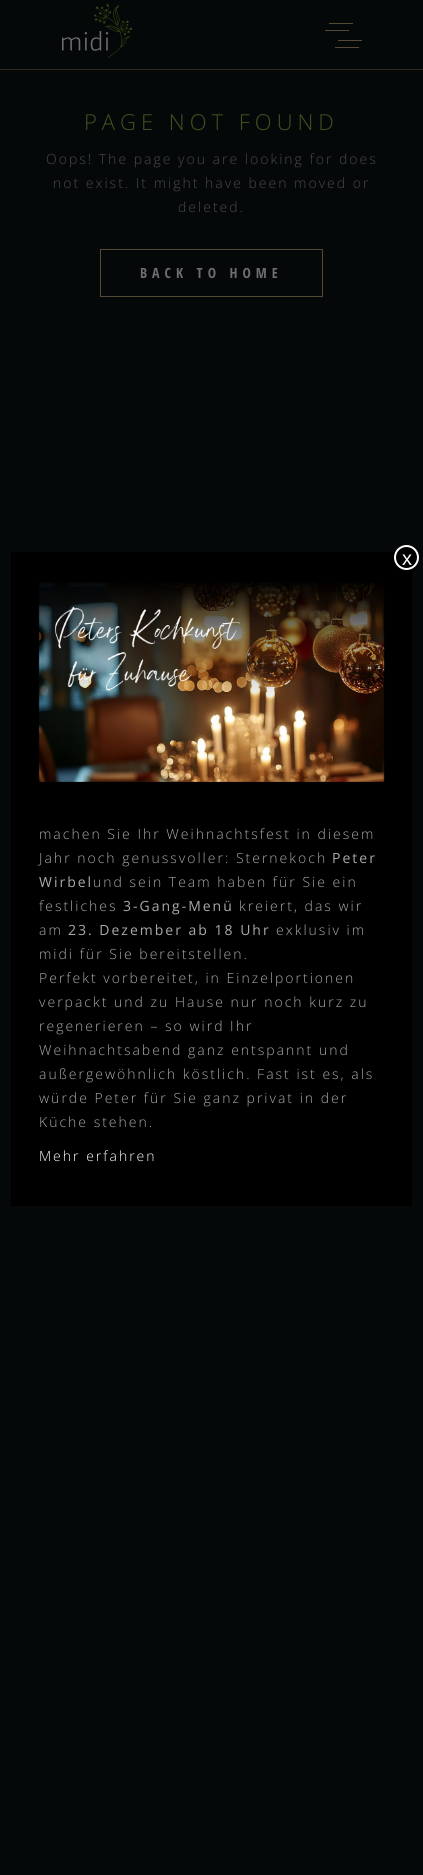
#include <cairo/cairo.h>
#include <math.h>
#include <stddef.h>

static cairo_t *cr;

static void use_color(int r, int g, int b) {
  cairo_set_source_rgb(cr, r / 255.0, g / 255.0, b / 255.0);
}

static void text(double x, double y, const char *s, const char *family, double size, int italic, int bold, int r, int g, int b) {
  cairo_select_font_face(cr, family, italic ? CAIRO_FONT_SLANT_ITALIC : CAIRO_FONT_SLANT_NORMAL,
    bold ? CAIRO_FONT_WEIGHT_BOLD : CAIRO_FONT_WEIGHT_NORMAL);
  cairo_set_font_size(cr, size);
  use_color(r, g, b);
  cairo_move_to(cr, x, y);
  cairo_show_text(cr, s);
}

static void spaced_text(double x, double y, const char *s, double letter, double word) {
  cairo_move_to(cr, x, y);
  while (*s) {
    char ch[5] = {0};
    int n = 0;
    do ch[n++] = *s++; while ((*s & 0xC0) == 0x80);
    cairo_show_text(cr, ch);
    cairo_rel_move_to(cr, letter + word * (*ch == ' '), 0);
  }
}

static void box(double x, double y, double w, double h, int r, int g, int b) {
  use_color(r, g, b);
  cairo_rectangle(cr, x, y, w, h);
  cairo_fill(cr);
}

static void picture(const char *path, double x, double y, double w, double h) {
  cairo_surface_t *image = cairo_image_surface_create_from_png(path);
  cairo_save(cr);
  cairo_set_source_surface(cr, image, x, y);
  cairo_rectangle(cr, x, y, w, h);
  cairo_fill(cr);
  cairo_restore(cr);
  cairo_surface_destroy(image);
}

static void draw(void) {
  use_color(5, 8, 9);
  cairo_paint(cr);
  box(0, 69, 423, 1, 49, 39, 27);
  picture("img_01.png", 62, 4, 70, 54);
  box(329, 23, 24, 1, 86, 74, 55);
  box(325, 30, 24, 1, 86, 74, 55);
  box(338, 40, 24, 1, 86, 74, 55);
  box(335, 47, 24, 1, 86, 74, 55);
  cairo_rectangle(cr, 100.5, 249.5, 222, 47);
  cairo_set_line_width(cr, 1);
  cairo_stroke(cr);
  box(19, 560, 385, 638, 0, 0, 0);
  cairo_new_path(cr);
  cairo_move_to(cr, 15, 556);
  cairo_line_to(cr, 408, 556);
  cairo_line_to(cr, 408, 1202);
  cairo_line_to(cr, 15, 1202);
  cairo_close_path(cr);
  cairo_set_line_width(cr, 8);
  cairo_stroke(cr);
  cairo_arc(cr, 406.5, 557.5, 11.5, 0, 2 * M_PI);
  cairo_fill_preserve(cr);
  use_color(255, 255, 255);
  cairo_set_line_width(cr, 2);
  cairo_stroke(cr);
  picture("img_02.png", 38, 582, 347, 200);
  cairo_select_font_face(cr, "Open Sans Light", CAIRO_FONT_SLANT_NORMAL, CAIRO_FONT_WEIGHT_NORMAL);
  cairo_set_font_size(cr, 22);
  use_color(68, 81, 31);
  spaced_text(84, 130, "PAGE NOT FOUND", 5, 0);
  cairo_set_font_size(cr, 14);
  use_color(73, 73, 73);
  spaced_text(46, 164, "Oops! The page you are looking for does", 2, 0);
  spaced_text(53, 188, "not exist. It might have been moved or", 2, 0);
  spaced_text(178, 212, "deleted.", 2, 0);
  cairo_select_font_face(cr, "Open Sans Condensed", CAIRO_FONT_SLANT_NORMAL, CAIRO_FONT_WEIGHT_BOLD);
  use_color(110, 110, 110);
  spaced_text(140, 278, "BACK TO HOME", 5, 0);
  text(402, 565, "x", "Liberation Sans", 20, 0, 0, 255, 255, 255);
  cairo_select_font_face(cr, "Open Sans Light", CAIRO_FONT_SLANT_NORMAL, CAIRO_FONT_WEIGHT_NORMAL);
  cairo_set_font_size(cr, 14);
  use_color(170, 170, 170);
  spaced_text(39, 839, "machen Sie Ihr Weihnachtsfest in diesem", 2, 0);
  spaced_text(39, 863, "Jahr noch genussvoller: Sternekoch", 2, 0);
  cairo_select_font_face(cr, "Open Sans", CAIRO_FONT_SLANT_NORMAL, CAIRO_FONT_WEIGHT_NORMAL);
  spaced_text(332, 863, "Peter", 2, 0);
  spaced_text(39, 887, "Wirbel", 2, 0);
  cairo_select_font_face(cr, "Open Sans Light", CAIRO_FONT_SLANT_NORMAL, CAIRO_FONT_WEIGHT_NORMAL);
  spaced_text(93, 887, "und sein Team haben für Sie ein", 2, 0);
  spaced_text(39, 911, "festliches", 2, 0);
  cairo_select_font_face(cr, "Open Sans", CAIRO_FONT_SLANT_NORMAL, CAIRO_FONT_WEIGHT_NORMAL);
  spaced_text(123, 911, "3-Gang-Menü", 2, 0);
  cairo_select_font_face(cr, "Open Sans Light", CAIRO_FONT_SLANT_NORMAL, CAIRO_FONT_WEIGHT_NORMAL);
  spaced_text(239, 911, "kreiert, das wir", 2, 0);
  spaced_text(39, 935, "am", 2, 0);
  cairo_select_font_face(cr, "Open Sans", CAIRO_FONT_SLANT_NORMAL, CAIRO_FONT_WEIGHT_NORMAL);
  spaced_text(68, 935, "23. Dezember ab 18 Uhr", 2, 0);
  cairo_select_font_face(cr, "Open Sans Light", CAIRO_FONT_SLANT_NORMAL, CAIRO_FONT_WEIGHT_NORMAL);
  spaced_text(276, 935, "exklusiv im", 2, 0);
  spaced_text(39, 959, "midi für Sie bereitstellen.", 2, 0);
  spaced_text(39, 983, "Perfekt vorbereitet, in Einzelportionen", 2, 0);
  spaced_text(39, 1007, "verpackt und zu Hause nur noch kurz zu", 2, 0);
  spaced_text(39, 1031, "regenerieren – so wird Ihr", 2, 0);
  spaced_text(39, 1055, "Weihnachtsabend ganz entspannt und", 2, 0);
  spaced_text(39, 1079, "außergewöhnlich köstlich. Fast ist es, als", 2, 0);
  spaced_text(39, 1103, "würde Peter für Sie ganz privat in der", 2, 0);
  spaced_text(39, 1127, "Küche stehen.", 2, 0);
  use_color(255, 255, 255);
  spaced_text(39, 1161, "Mehr erfahren", 2, 0);
}

int main(void) {
  cairo_surface_t *surface = cairo_image_surface_create(CAIRO_FORMAT_RGB24, 423, 1875);
  cr = cairo_create(surface);
  cairo_font_options_t *options = cairo_font_options_create();
  cairo_font_options_set_hint_metrics(options, CAIRO_HINT_METRICS_OFF);
  cairo_font_options_set_hint_style(options, CAIRO_HINT_STYLE_NONE);
  cairo_set_font_options(cr, options);
  cairo_set_miter_limit(cr, 4);
  draw();
  cairo_surface_write_to_png(surface, "out.png");
  cairo_font_options_destroy(options);
  cairo_destroy(cr);
  cairo_surface_destroy(surface);
  return 0;
}
